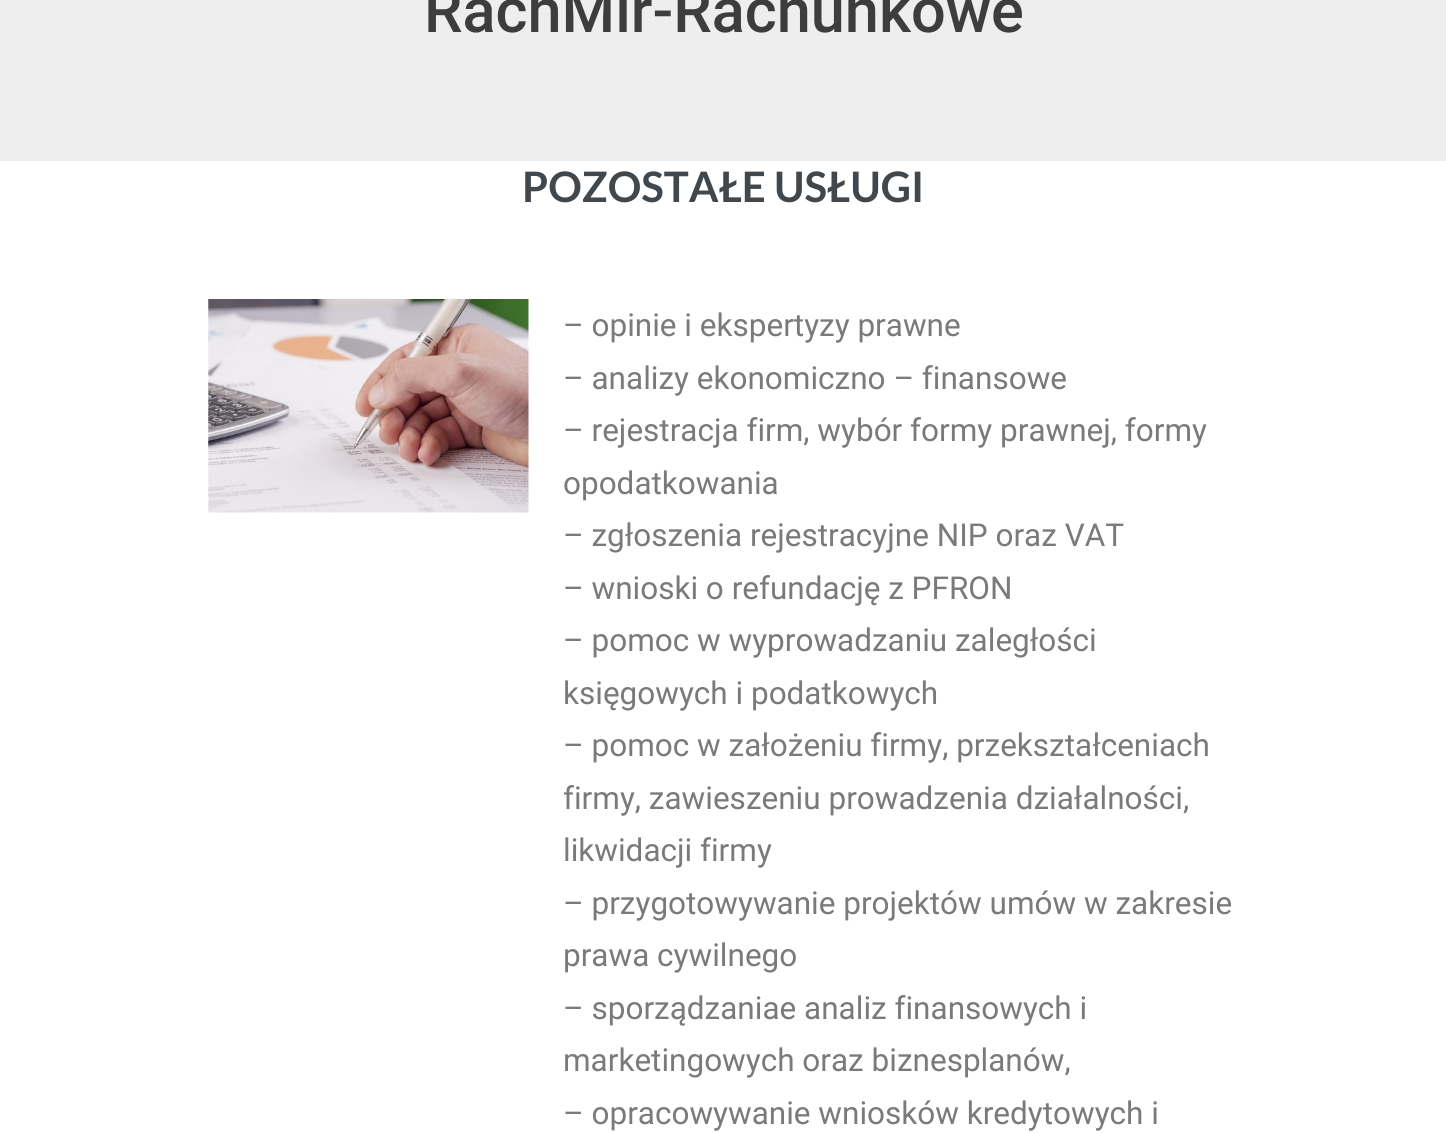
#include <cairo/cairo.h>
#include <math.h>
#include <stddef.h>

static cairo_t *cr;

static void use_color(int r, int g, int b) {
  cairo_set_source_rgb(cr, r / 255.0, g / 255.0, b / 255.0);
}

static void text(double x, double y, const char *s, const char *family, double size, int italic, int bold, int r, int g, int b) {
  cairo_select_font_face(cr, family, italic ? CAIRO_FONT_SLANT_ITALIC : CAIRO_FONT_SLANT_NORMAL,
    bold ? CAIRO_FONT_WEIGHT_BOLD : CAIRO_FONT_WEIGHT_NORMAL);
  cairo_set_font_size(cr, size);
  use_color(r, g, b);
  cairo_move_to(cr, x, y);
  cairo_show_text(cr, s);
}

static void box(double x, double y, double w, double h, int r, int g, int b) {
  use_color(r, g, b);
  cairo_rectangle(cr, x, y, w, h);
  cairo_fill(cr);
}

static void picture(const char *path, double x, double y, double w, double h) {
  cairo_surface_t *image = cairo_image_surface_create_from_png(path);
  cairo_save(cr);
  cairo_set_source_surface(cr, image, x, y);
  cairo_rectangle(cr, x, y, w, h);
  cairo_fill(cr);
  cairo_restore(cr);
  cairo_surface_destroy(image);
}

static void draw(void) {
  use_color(255, 255, 255);
  cairo_paint(cr);
  box(0, 0, 1446, 161, 238, 238, 238);
  picture("img_01.png", 208, 299, 321, 214);
  text(424, 32, "RachMir-Rachunkowe", "Roboto Medium", 61.25, 0, 0, 61, 61, 61);
  text(522, 202, "POZOSTAŁE USŁUGI", "Lato", 42, 0, 1, 66, 71, 76);
  text(563, 336, "– opinie i ekspertyzy prawne", "Roboto", 31.5, 0, 0, 122, 122, 122);
  text(563, 389, "– analizy ekonomiczno – finansowe", "Roboto", 31.5, 0, 0, 122, 122, 122);
  text(563, 441, "– rejestracja firm, wybór formy prawnej, formy", "Roboto", 31.5, 0, 0, 122, 122, 122);
  text(563, 494, "opodatkowania", "Roboto", 31.5, 0, 0, 122, 122, 122);
  text(563, 546, "– zgłoszenia rejestracyjne NIP oraz VAT", "Roboto", 31.5, 0, 0, 122, 122, 122);
  text(563, 599, "– wnioski o refundację z PFRON", "Roboto", 31.5, 0, 0, 122, 122, 122);
  text(563, 651, "– pomoc w wyprowadzaniu zaległości", "Roboto", 31.5, 0, 0, 122, 122, 122);
  text(563, 704, "księgowych i podatkowych", "Roboto", 31.5, 0, 0, 122, 122, 122);
  text(563, 756, "– pomoc w założeniu firmy, przekształceniach", "Roboto", 31.5, 0, 0, 122, 122, 122);
  text(563, 809, "firmy, zawieszeniu prowadzenia działalności,", "Roboto", 31.5, 0, 0, 122, 122, 122);
  text(563, 861, "likwidacji firmy", "Roboto", 31.5, 0, 0, 122, 122, 122);
  text(563, 914, "– przygotowywanie projektów umów w zakresie", "Roboto", 31.5, 0, 0, 122, 122, 122);
  text(563, 966, "prawa cywilnego", "Roboto", 31.5, 0, 0, 122, 122, 122);
  text(563, 1019, "– sporządzaniae analiz finansowych i", "Roboto", 31.5, 0, 0, 122, 122, 122);
  text(563, 1071, "marketingowych oraz biznesplanów,", "Roboto", 31.5, 0, 0, 122, 122, 122);
  text(563, 1124, "– opracowywanie wniosków kredytowych i", "Roboto", 31.5, 0, 0, 122, 122, 122);
}

int main(void) {
  cairo_surface_t *surface = cairo_image_surface_create(CAIRO_FORMAT_RGB24, 1446, 1133);
  cr = cairo_create(surface);
  cairo_font_options_t *options = cairo_font_options_create();
  cairo_font_options_set_hint_metrics(options, CAIRO_HINT_METRICS_OFF);
  cairo_font_options_set_hint_style(options, CAIRO_HINT_STYLE_NONE);
  cairo_set_font_options(cr, options);
  cairo_set_miter_limit(cr, 4);
  draw();
  cairo_surface_write_to_png(surface, "out.png");
  cairo_font_options_destroy(options);
  cairo_destroy(cr);
  cairo_surface_destroy(surface);
  return 0;
}
